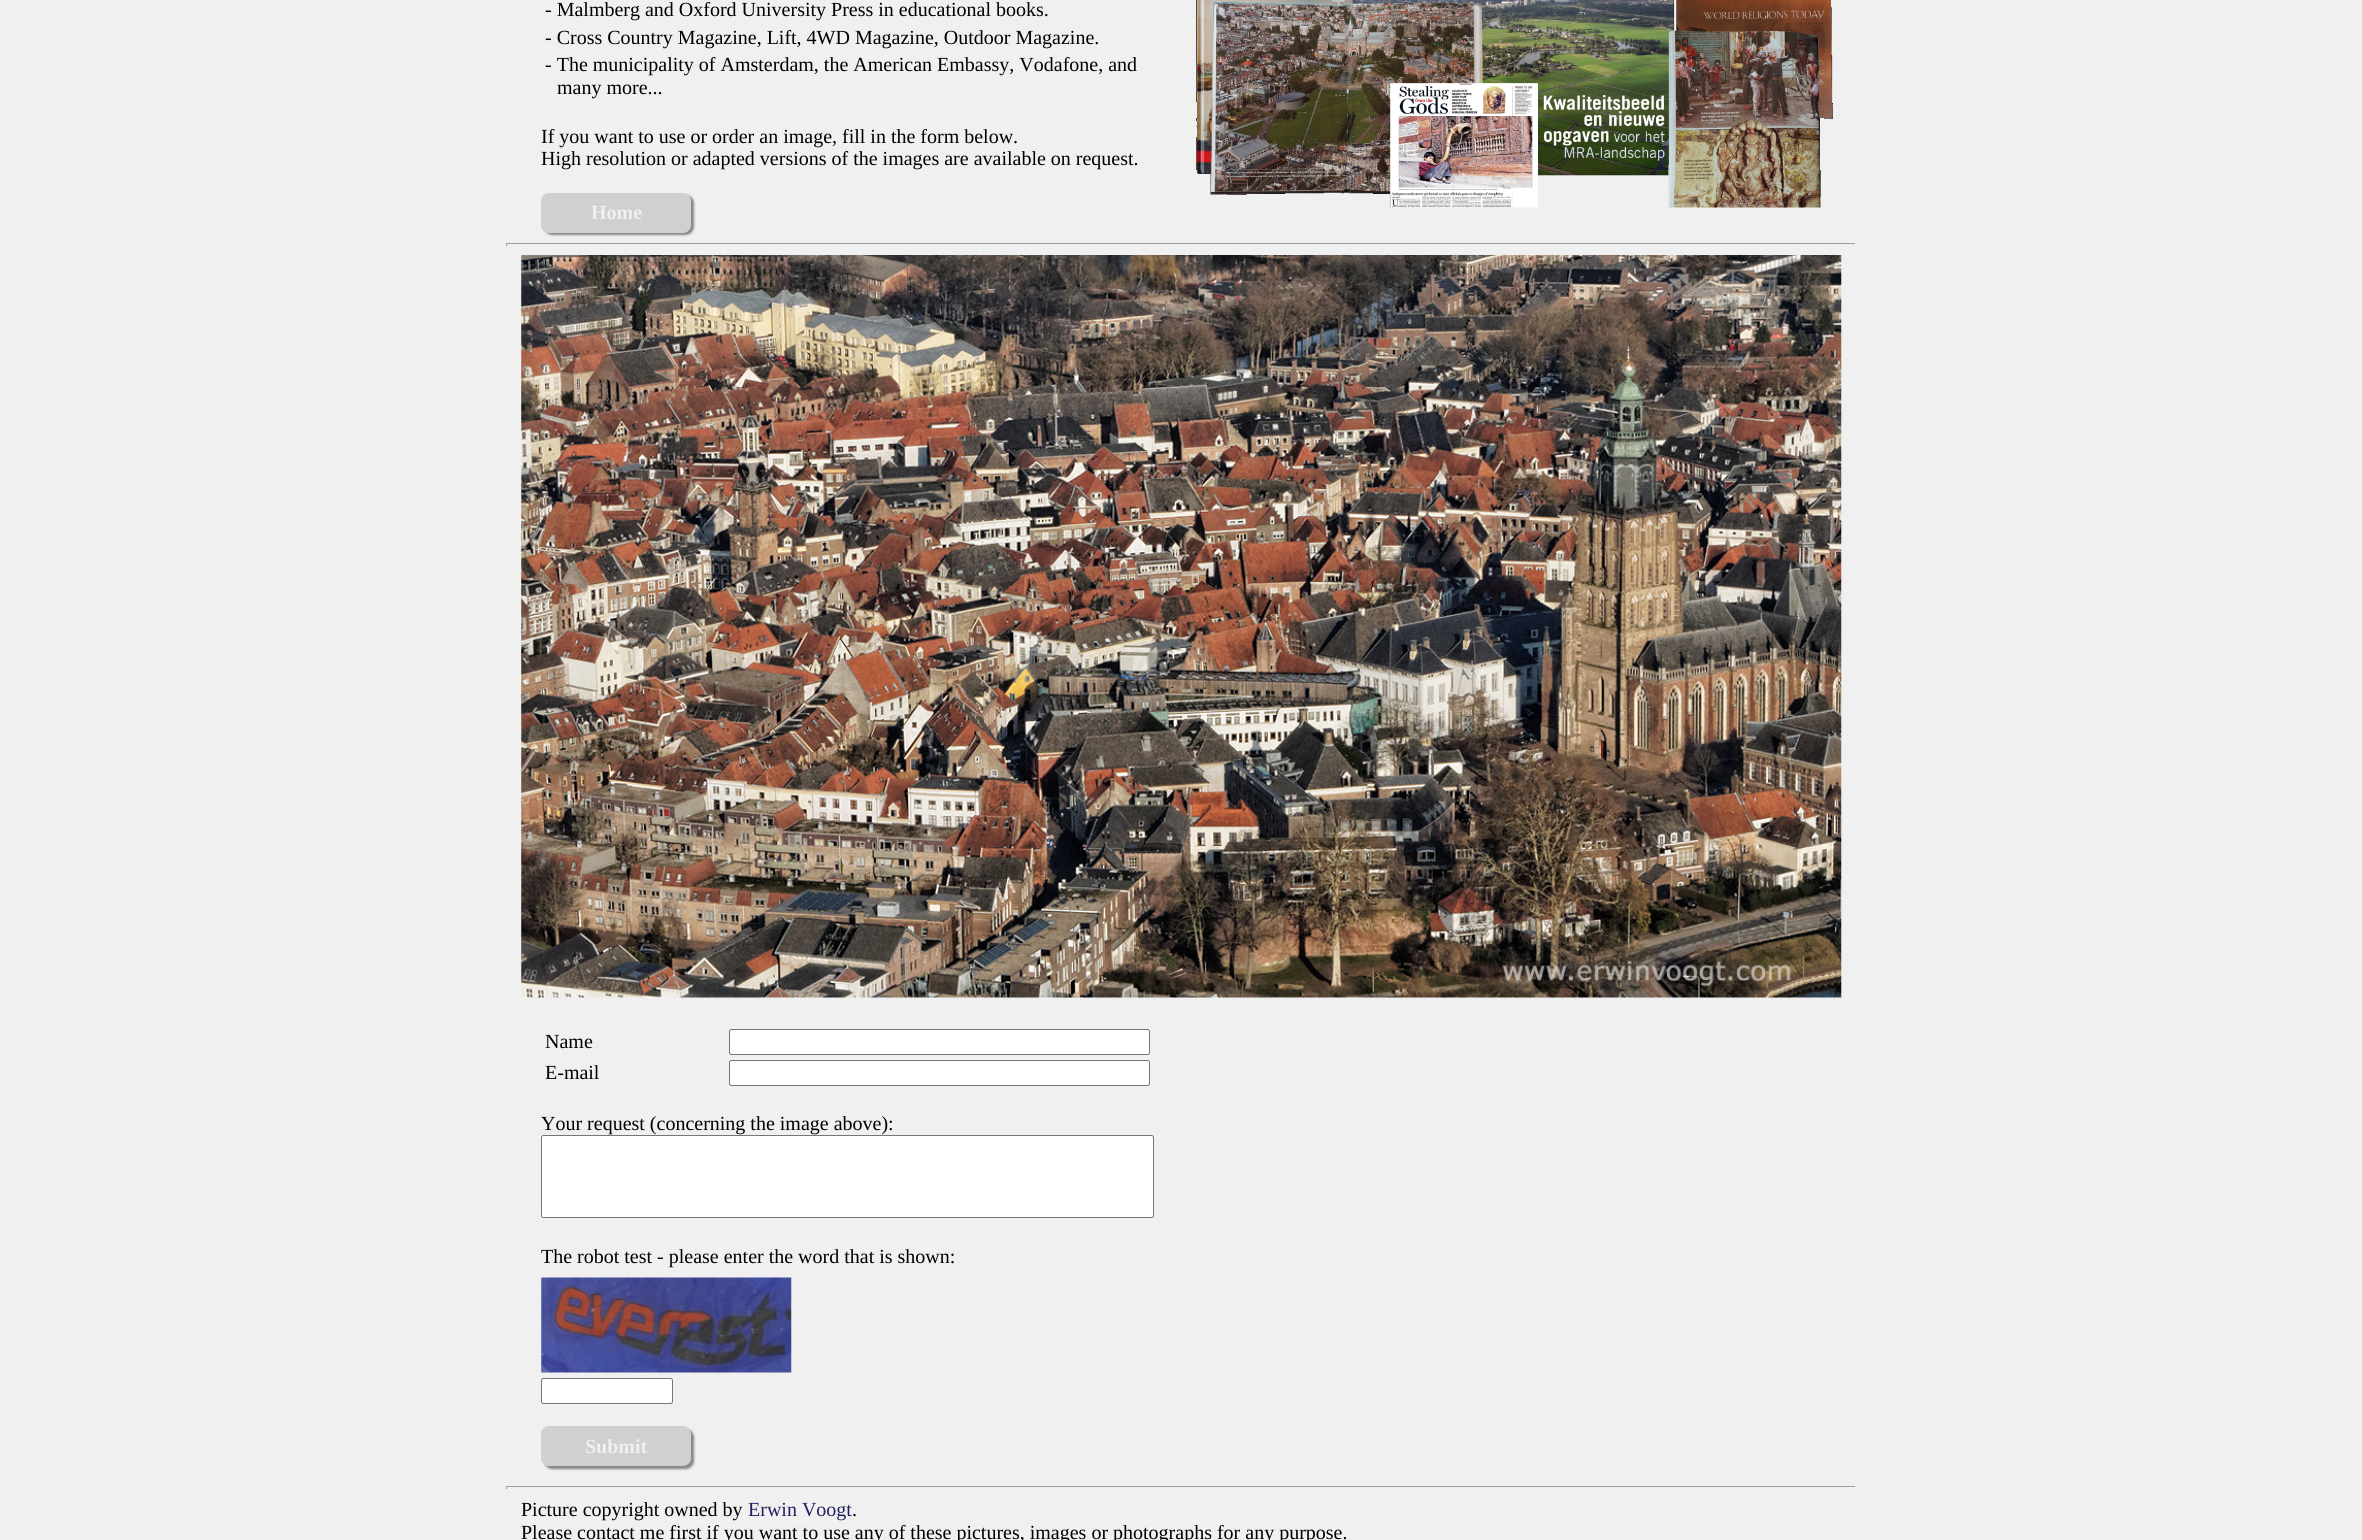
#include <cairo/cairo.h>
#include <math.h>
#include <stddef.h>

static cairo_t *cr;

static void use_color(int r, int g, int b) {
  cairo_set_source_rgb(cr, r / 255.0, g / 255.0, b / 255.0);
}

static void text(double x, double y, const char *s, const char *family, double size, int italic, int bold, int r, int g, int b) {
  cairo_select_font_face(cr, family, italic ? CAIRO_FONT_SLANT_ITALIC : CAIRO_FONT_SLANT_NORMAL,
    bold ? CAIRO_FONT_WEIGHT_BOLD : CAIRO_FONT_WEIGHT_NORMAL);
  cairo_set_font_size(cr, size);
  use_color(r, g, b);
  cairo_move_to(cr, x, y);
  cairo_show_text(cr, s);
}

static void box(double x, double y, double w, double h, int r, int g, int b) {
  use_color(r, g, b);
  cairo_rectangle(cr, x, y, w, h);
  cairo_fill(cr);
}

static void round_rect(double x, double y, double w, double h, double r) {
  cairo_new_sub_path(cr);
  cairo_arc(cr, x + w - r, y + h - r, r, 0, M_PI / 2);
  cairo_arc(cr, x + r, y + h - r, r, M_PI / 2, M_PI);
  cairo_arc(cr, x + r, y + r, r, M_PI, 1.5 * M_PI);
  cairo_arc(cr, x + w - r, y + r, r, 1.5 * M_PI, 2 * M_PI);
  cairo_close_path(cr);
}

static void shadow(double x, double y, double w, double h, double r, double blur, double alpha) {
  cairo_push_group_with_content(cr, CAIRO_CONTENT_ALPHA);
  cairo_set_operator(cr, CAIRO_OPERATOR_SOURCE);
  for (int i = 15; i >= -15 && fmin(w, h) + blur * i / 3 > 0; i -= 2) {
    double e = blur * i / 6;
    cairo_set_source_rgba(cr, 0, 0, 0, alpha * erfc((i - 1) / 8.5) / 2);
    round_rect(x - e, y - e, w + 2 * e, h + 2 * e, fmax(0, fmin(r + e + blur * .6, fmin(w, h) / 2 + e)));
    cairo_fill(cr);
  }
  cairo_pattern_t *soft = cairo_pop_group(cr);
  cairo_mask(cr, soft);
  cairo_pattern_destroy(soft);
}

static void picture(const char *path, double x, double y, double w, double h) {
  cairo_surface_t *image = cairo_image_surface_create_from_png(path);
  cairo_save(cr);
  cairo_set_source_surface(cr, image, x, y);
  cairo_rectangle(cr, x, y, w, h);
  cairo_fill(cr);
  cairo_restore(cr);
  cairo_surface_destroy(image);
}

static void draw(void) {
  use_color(240, 240, 240);
  cairo_paint(cr);
  use_color(136, 136, 136);
  shadow(544, 195, 150, 40, 8, 1, 1);
  use_color(208, 208, 208);
  round_rect(541, 193, 150, 40, 8);
  cairo_fill(cr);
  picture("img_01.png", 1196, 0, 637, 208);
  box(506, 243, 1350, 1, 159, 159, 159);
  box(1855, 243, 1, 3, 238, 238, 238);
  box(506, 243, 1, 3, 159, 159, 159);
  picture("img_02.png", 521, 255, 1321, 743);
  use_color(255, 255, 255);
  round_rect(729.5, 1029.5, 420, 25, 2);
  cairo_fill_preserve(cr);
  use_color(118, 118, 118);
  cairo_set_line_width(cr, 1);
  cairo_stroke(cr);
  use_color(255, 255, 255);
  round_rect(729.5, 1060.5, 420, 25, 2);
  cairo_fill_preserve(cr);
  use_color(118, 118, 118);
  cairo_stroke(cr);
  use_color(255, 255, 255);
  round_rect(541.5, 1135.5, 612, 82, 2);
  cairo_fill_preserve(cr);
  use_color(118, 118, 118);
  cairo_stroke(cr);
  picture("img_03.png", 541, 1277, 251, 96);
  use_color(255, 255, 255);
  round_rect(541.5, 1378.5, 131, 25, 2);
  cairo_fill_preserve(cr);
  use_color(118, 118, 118);
  cairo_stroke(cr);
  use_color(136, 136, 136);
  shadow(544, 1429, 150, 40, 8, 1, 1);
  use_color(208, 208, 208);
  round_rect(541, 1426, 150, 40, 8);
  cairo_fill(cr);
  box(506, 1486, 1350, 1, 159, 159, 159);
  box(1855, 1486, 1, 3, 238, 238, 238);
  box(506, 1486, 1, 3, 159, 159, 159);
  text(545, 16, "- Malmberg and Oxford University Press in educational books.", "Liberation Serif", 20, 0, 0, 0, 0, 0);
  text(545, 44, "- Cross Country Magazine, Lift, 4WD Magazine, Outdoor Magazine.", "Liberation Serif", 20, 0, 0, 0, 0, 0);
  text(545, 71, "- The municipality of Amsterdam, the American Embassy, Vodafone, and", "Liberation Serif", 20, 0, 0, 0, 0, 0);
  text(557, 94, "many more...", "Liberation Serif", 20, 0, 0, 0, 0, 0);
  text(541, 143, "If you want to use or order an image, fill in the form below.", "Liberation Serif", 20, 0, 0, 0, 0, 0);
  text(541, 165, "High resolution or adapted versions of the images are available on request.", "Liberation Serif", 20, 0, 0, 0, 0, 0);
  text(591, 219, "Home", "Liberation Serif", 20, 0, 1, 240, 240, 240);
  text(545, 1048, "Name", "Liberation Serif", 20, 0, 0, 0, 0, 0);
  text(545, 1079, "E-mail", "Liberation Serif", 20, 0, 0, 0, 0, 0);
  text(541, 1130, "Your request (concerning the image above):", "Liberation Serif", 20, 0, 0, 0, 0, 0);
  text(541, 1263, "The robot test - please enter the word that is shown:", "Liberation Serif", 20, 0, 0, 0, 0, 0);
  text(585, 1453, "Submit", "Liberation Serif", 20, 0, 1, 240, 240, 240);
  text(521, 1516, "Picture copyright owned by", "Liberation Serif", 20, 0, 0, 0, 0, 0);
  text(748, 1516, "Erwin Voogt", "Liberation Serif", 20, 0, 0, 32, 32, 96);
  text(852, 1516, ".", "Liberation Serif", 20, 0, 0, 0, 0, 0);
  text(521, 1539, "Please contact me first if you want to use any of these pictures, images or photographs for any purpose.", "Liberation Serif", 20, 0, 0, 0, 0, 0);
}

int main(void) {
  cairo_surface_t *surface = cairo_image_surface_create(CAIRO_FORMAT_RGB24, 2362, 1540);
  cr = cairo_create(surface);
  cairo_font_options_t *options = cairo_font_options_create();
  cairo_font_options_set_hint_metrics(options, CAIRO_HINT_METRICS_OFF);
  cairo_font_options_set_hint_style(options, CAIRO_HINT_STYLE_NONE);
  cairo_set_font_options(cr, options);
  cairo_set_miter_limit(cr, 4);
  draw();
  cairo_surface_write_to_png(surface, "out.png");
  cairo_font_options_destroy(options);
  cairo_destroy(cr);
  cairo_surface_destroy(surface);
  return 0;
}
